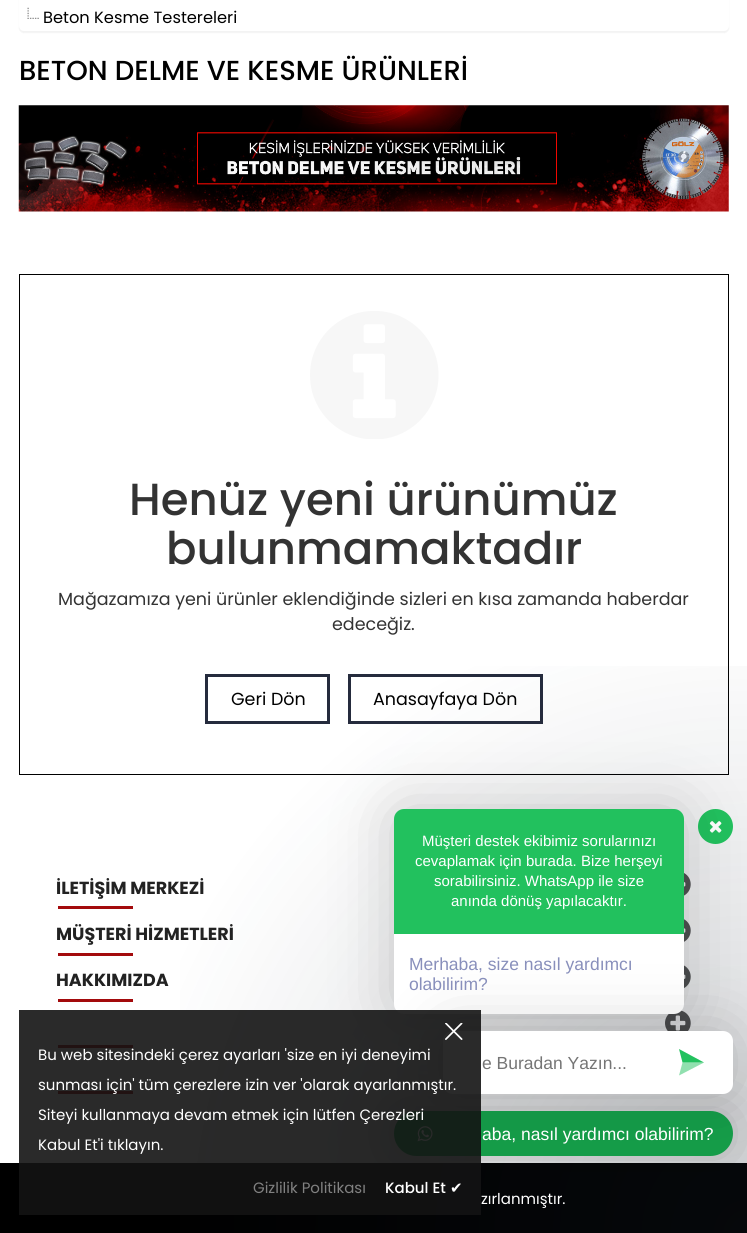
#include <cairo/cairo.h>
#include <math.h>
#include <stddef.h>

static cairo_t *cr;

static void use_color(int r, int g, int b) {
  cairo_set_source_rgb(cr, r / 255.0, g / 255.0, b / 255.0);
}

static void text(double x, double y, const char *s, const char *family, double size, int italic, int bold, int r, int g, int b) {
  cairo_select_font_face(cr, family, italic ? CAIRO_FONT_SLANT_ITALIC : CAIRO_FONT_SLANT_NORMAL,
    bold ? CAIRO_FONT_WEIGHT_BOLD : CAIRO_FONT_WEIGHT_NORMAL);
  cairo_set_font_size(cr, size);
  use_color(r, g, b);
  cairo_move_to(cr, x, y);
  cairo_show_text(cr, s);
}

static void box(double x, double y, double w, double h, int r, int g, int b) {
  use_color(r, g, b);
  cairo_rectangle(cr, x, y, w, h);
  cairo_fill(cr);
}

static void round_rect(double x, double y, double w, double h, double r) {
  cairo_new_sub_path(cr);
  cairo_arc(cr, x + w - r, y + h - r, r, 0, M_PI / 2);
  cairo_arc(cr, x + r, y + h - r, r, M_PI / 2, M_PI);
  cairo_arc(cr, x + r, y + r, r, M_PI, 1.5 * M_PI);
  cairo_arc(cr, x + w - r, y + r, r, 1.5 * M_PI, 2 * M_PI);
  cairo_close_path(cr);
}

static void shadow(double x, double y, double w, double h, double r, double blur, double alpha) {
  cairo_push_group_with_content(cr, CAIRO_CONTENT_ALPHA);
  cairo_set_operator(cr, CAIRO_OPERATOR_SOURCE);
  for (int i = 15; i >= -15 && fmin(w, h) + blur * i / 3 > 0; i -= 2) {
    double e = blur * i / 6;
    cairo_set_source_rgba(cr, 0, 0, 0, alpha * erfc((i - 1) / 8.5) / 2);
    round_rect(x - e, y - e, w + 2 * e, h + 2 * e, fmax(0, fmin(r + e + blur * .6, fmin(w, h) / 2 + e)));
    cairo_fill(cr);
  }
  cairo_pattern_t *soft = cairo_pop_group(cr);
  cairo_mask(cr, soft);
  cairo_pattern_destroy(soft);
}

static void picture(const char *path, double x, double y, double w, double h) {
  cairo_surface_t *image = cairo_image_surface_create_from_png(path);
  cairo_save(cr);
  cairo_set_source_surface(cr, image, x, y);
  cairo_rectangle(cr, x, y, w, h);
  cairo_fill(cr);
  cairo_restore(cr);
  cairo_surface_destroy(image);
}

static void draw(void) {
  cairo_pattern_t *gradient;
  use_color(255, 255, 255);
  cairo_paint(cr);
  use_color(0, 0, 0);
  shadow(19, -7, 710, 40, 5, 0.5, 0.05);
  use_color(255, 255, 255);
  round_rect(19, -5, 710, 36, 5);
  cairo_fill(cr);
  picture("img_01.png", 27, 7, 12, 12);
  picture("img_02.png", 18, 105, 711, 107);
  cairo_rectangle(cr, 19.5, 274.5, 709, 500);
  use_color(0, 0, 0);
  cairo_set_line_width(cr, 1);
  cairo_stroke(cr);
  picture("img_03.png", 310, 311, 129, 128);
  cairo_rectangle(cr, 206.5, 675.5, 122, 47);
  use_color(37, 43, 61);
  cairo_set_line_width(cr, 3);
  cairo_stroke(cr);
  cairo_rectangle(cr, 349.5, 675.5, 192, 47);
  cairo_stroke(cr);
  box(58, 906, 75, 3, 163, 10, 12);
  picture("img_04.png", 684, 873, 7, 23);
  box(58, 953, 75, 3, 163, 10, 12);
  picture("img_05.png", 684, 919, 7, 23);
  box(58, 999, 75, 3, 163, 10, 12);
  picture("img_06.png", 684, 965, 7, 23);
  picture("img_07.png", 665, 1010, 26, 21);
  box(58, 1045, 75, 3, 163, 10, 12);
  box(58, 1091, 75, 3, 163, 10, 12);
  box(0, 1163, 747, 70, 0, 0, 0);
  gradient = cairo_pattern_create_radial(748, 1234, 0, 748, 1234, 884);
  cairo_pattern_add_color_stop_rgba(gradient, 0, 0.114, 0.153, 0.212, 0.2);
  cairo_pattern_add_color_stop_rgba(gradient, 0.72, 0.114, 0.153, 0.212, 0);
  cairo_set_source(cr, gradient);
  cairo_pattern_destroy(gradient);
  cairo_rectangle(cr, 180, 666, 567, 567);
  cairo_fill(cr);
  use_color(34, 193, 94);
  cairo_arc(cr, 715.5, 826.5, 17.5, 0, 2 * M_PI);
  cairo_fill(cr);
  picture("img_08.png", 709, 821, 13, 12);
  use_color(0, 0, 0);
  shadow(394, 809, 290, 205, 10, 31, 0.2);
  use_color(34, 193, 94);
  cairo_new_path(cr);
  cairo_move_to(cr, 404, 809);
  cairo_line_to(cr, 674, 809);
  cairo_curve_to(cr, 679.5, 809, 684, 813.5, 684, 819);
  cairo_line_to(cr, 684, 934);
  cairo_line_to(cr, 394, 934);
  cairo_line_to(cr, 394, 819);
  cairo_curve_to(cr, 394, 813.5, 398.5, 809, 404, 809);
  cairo_close_path(cr);
  cairo_fill(cr);
  use_color(255, 255, 255);
  cairo_new_path(cr);
  cairo_move_to(cr, 394, 934);
  cairo_line_to(cr, 684, 934);
  cairo_line_to(cr, 684, 1004);
  cairo_curve_to(cr, 684, 1009.5, 679.5, 1014, 674, 1014);
  cairo_line_to(cr, 404, 1014);
  cairo_curve_to(cr, 398.5, 1014, 394, 1009.5, 394, 1004);
  cairo_close_path(cr);
  cairo_fill(cr);
  use_color(0, 0, 0);
  shadow(394, 1111, 339, 45, 22.5, 31, 0.2);
  use_color(21, 157, 73);
  round_rect(394, 1111, 339, 45, 22.5);
  cairo_fill(cr);
  picture("img_09.png", 417, 1126, 16, 16);
  use_color(0, 0, 0);
  shadow(443, 1031, 290, 63, 10, 31, 0.2);
  use_color(255, 255, 255);
  round_rect(443, 1031, 290, 63, 10);
  cairo_fill(cr);
  use_color(145, 224, 175);
  cairo_new_path(cr);
  cairo_move_to(cr, 704, 1062.5);
  cairo_line_to(cr, 682.5, 1062.5);
  cairo_line_to(cr, 679, 1075.5);
  cairo_close_path(cr);
  cairo_fill(cr);
  use_color(34, 193, 94);
  cairo_new_path(cr);
  cairo_move_to(cr, 704, 1062.5);
  cairo_line_to(cr, 682.5, 1062.5);
  cairo_line_to(cr, 679, 1049);
  cairo_close_path(cr);
  cairo_fill(cr);
  cairo_set_source_rgba(cr, 0.078, 0.078, 0.078, 0.9);
  cairo_rectangle(cr, 19, 1010, 462, 205);
  cairo_fill(cr);
  picture("img_10.png", 445, 1023, 18, 17);
  text(43, 23, "Beton Kesme Testereleri", "Poppins", 16.25, 0, 0, 0, 0, 0);
  text(19, 80, "BETON DELME VE KESME ÜRÜNLERİ", "Poppins Medium", 27.5, 0, 0, 0, 0, 0);
  text(129, 515, "Henüz yeni ürünümüz", "Poppins Medium", 45, 0, 0, 51, 51, 51);
  text(166, 564, "bulunmamaktadır", "Poppins Medium", 45, 0, 0, 51, 51, 51);
  text(58, 605, "Mağazamıza yeni ürünler eklendiğinde sizleri en kısa zamanda haberdar", "Poppins", 17.5, 0, 0, 51, 51, 51);
  text(332, 630, "edeceğiz.", "Poppins", 17.5, 0, 0, 51, 51, 51);
  text(231, 705, "Geri Dön", "Poppins", 17.5, 0, 0, 0, 0, 0);
  text(373, 705, "Anasayfaya Dön", "Poppins", 17.5, 0, 0, 0, 0, 0);
  text(56, 894, "İLETİŞİM MERKEZİ", "Poppins", 17.5, 0, 1, 34, 34, 34);
  text(56, 940, "MÜŞTERİ HİZMETLERİ", "Poppins", 17.5, 0, 1, 34, 34, 34);
  text(56, 986, "HAKKIMIZDA", "Poppins", 17.5, 0, 1, 34, 34, 34);
  text(422, 846, "Müşteri destek ekibimiz sorularınızı", "Liberation Sans", 15, 0, 0, 255, 255, 255);
  text(415, 866, "cevaplamak için burada. Bize herşeyi", "Liberation Sans", 15, 0, 0, 255, 255, 255);
  text(434, 886, "sorabilirsiniz. WhatsApp ile size", "Liberation Sans", 15, 0, 0, 255, 255, 255);
  text(451, 906, "anında dönüş yapılacaktır.", "Liberation Sans", 15, 0, 0, 255, 255, 255);
  text(409, 970, "Merhaba, size nasıl yardımcı", "Liberation Sans", 17.5, 0, 0, 136, 143, 187);
  text(409, 990, "olabilirim?", "Liberation Sans", 17.5, 0, 0, 136, 143, 187);
  text(482, 1069, "e Buradan Yazın...", "Liberation Sans", 17.5, 0, 0, 117, 117, 117);
  text(482, 1140, "aba, nasıl yardımcı olabilirim?", "Liberation Sans", 17.5, 0, 0, 255, 255, 255);
  text(481, 1204, "zırlanmıştır.", "Poppins", 15, 0, 0, 255, 255, 255);
  text(38, 1060, "Bu web sitesindeki çerez ayarları 'size en iyi deneyimi", "Poppins", 15, 0, 0, 255, 255, 255);
  text(38, 1090, "sunması için' tüm çerezlere izin ver 'olarak ayarlanmıştır.", "Poppins", 15, 0, 0, 255, 255, 255);
  text(38, 1120, "Siteyi kullanmaya devam etmek için lütfen Çerezleri", "Poppins", 15, 0, 0, 255, 255, 255);
  text(38, 1150, "Kabul Et'i tıklayın.", "Poppins", 15, 0, 0, 255, 255, 255);
  text(253, 1193, "Gizlilik Politikası", "Poppins", 15, 0, 0, 129, 129, 129);
  text(385, 1193, "Kabul Et", "Poppins Medium", 15, 0, 0, 255, 255, 255);
  text(450, 1193, "✔", "DejaVu Sans", 15, 0, 0, 255, 255, 255);
}

int main(void) {
  cairo_surface_t *surface = cairo_image_surface_create(CAIRO_FORMAT_RGB24, 747, 1233);
  cr = cairo_create(surface);
  cairo_font_options_t *options = cairo_font_options_create();
  cairo_font_options_set_hint_metrics(options, CAIRO_HINT_METRICS_OFF);
  cairo_font_options_set_hint_style(options, CAIRO_HINT_STYLE_NONE);
  cairo_set_font_options(cr, options);
  cairo_set_miter_limit(cr, 4);
  draw();
  cairo_surface_write_to_png(surface, "out.png");
  cairo_font_options_destroy(options);
  cairo_destroy(cr);
  cairo_surface_destroy(surface);
  return 0;
}
